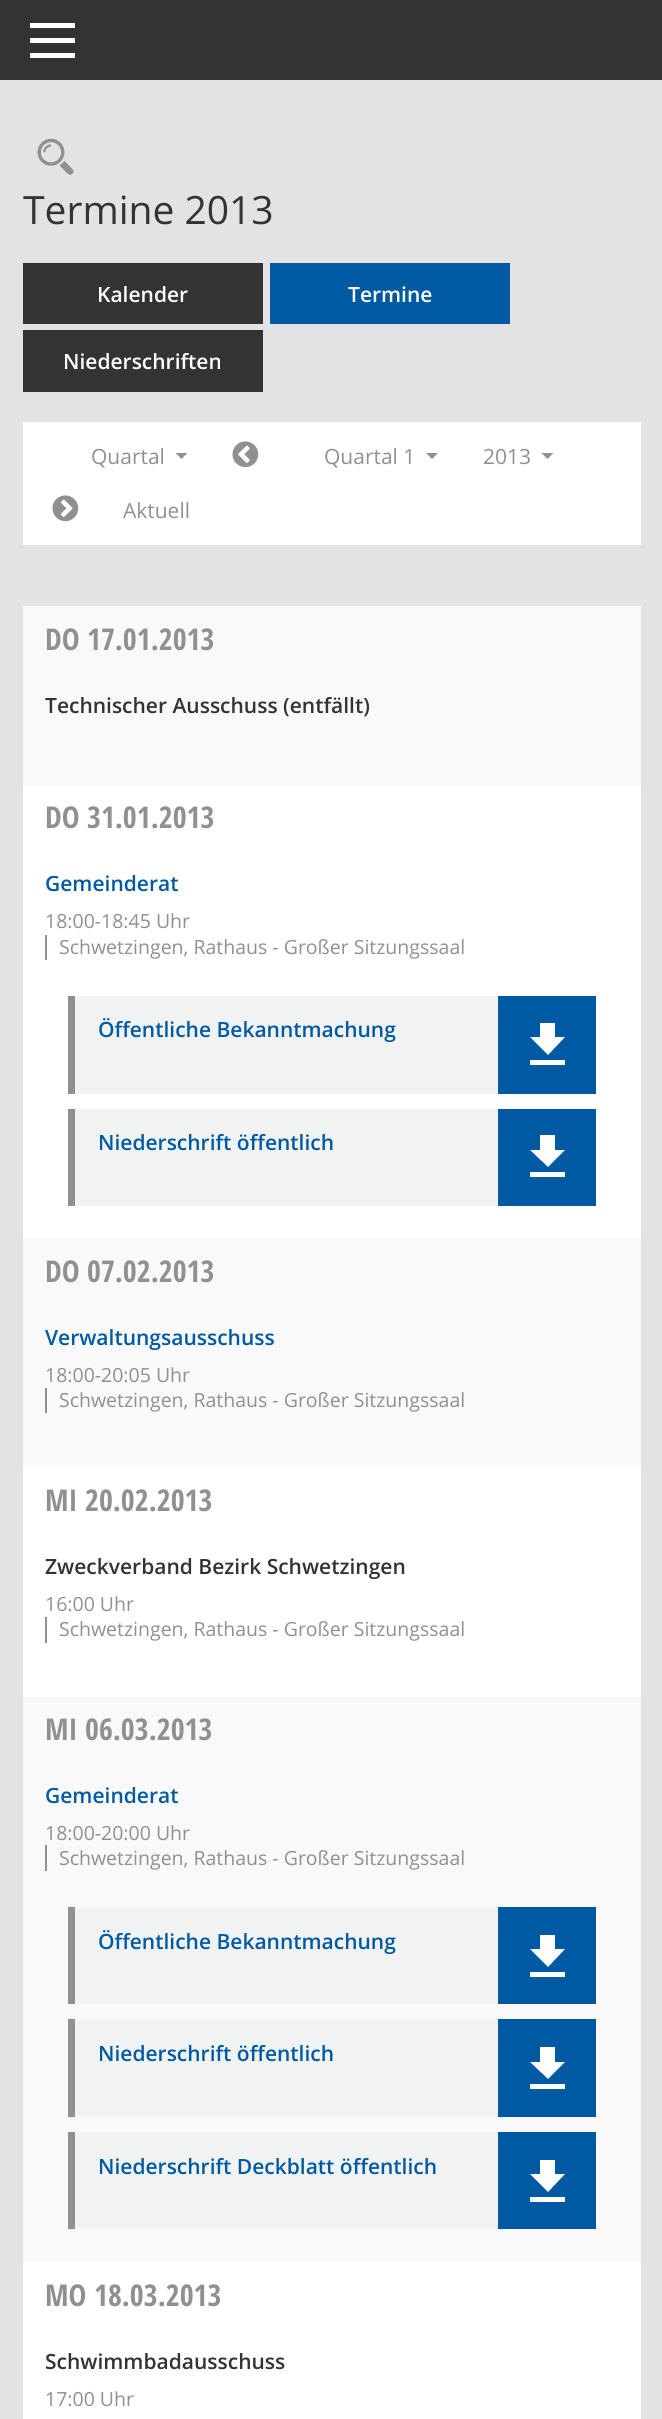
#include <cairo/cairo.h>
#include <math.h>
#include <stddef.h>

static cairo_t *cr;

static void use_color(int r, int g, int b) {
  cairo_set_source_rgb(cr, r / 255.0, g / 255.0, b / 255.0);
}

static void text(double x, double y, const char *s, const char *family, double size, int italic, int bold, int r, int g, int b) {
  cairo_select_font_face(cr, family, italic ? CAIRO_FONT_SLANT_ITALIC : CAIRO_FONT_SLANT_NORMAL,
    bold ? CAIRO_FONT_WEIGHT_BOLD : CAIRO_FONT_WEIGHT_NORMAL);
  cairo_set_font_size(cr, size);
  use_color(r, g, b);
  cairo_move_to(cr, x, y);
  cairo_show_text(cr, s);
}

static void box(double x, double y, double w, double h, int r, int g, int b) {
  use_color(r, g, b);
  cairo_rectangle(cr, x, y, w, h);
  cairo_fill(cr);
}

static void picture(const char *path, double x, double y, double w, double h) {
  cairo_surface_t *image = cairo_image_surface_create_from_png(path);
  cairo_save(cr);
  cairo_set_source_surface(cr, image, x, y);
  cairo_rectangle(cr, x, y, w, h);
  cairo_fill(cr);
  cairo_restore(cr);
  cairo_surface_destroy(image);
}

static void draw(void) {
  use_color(227, 227, 227);
  cairo_paint(cr);
  box(0, 0, 662, 80, 51, 51, 51);
  box(30, 23, 45, 5, 255, 255, 255);
  box(30, 38, 45, 5, 255, 255, 255);
  box(30, 53, 45, 5, 255, 255, 255);
  picture("img_01.png", 37, 138, 37, 37);
  box(263, 390, 378, 2, 222, 226, 230);
  box(23, 263, 240, 61, 51, 51, 51);
  box(270, 263, 240, 61, 0, 90, 163);
  box(23, 330, 240, 62, 51, 51, 51);
  box(23, 422, 618, 123, 255, 255, 255);
  use_color(144, 144, 144);
  cairo_new_path(cr);
  cairo_move_to(cr, 175.5, 453);
  cairo_line_to(cr, 187.5, 453);
  cairo_line_to(cr, 181.5, 459);
  cairo_close_path(cr);
  cairo_fill(cr);
  picture("img_02.png", 232, 441, 27, 27);
  cairo_new_path(cr);
  cairo_move_to(cr, 426, 453);
  cairo_line_to(cr, 438, 453);
  cairo_line_to(cr, 432, 459);
  cairo_close_path(cr);
  cairo_fill(cr);
  cairo_new_path(cr);
  cairo_move_to(cr, 541.5, 453);
  cairo_line_to(cr, 553.5, 453);
  cairo_line_to(cr, 547.5, 459);
  cairo_close_path(cr);
  cairo_fill(cr);
  picture("img_03.png", 52, 495, 27, 27);
  box(23, 785, 618, 1634, 255, 255, 255);
  box(23, 606, 618, 179, 249, 249, 249);
  box(45, 935, 2, 25, 144, 144, 144);
  box(75, 996, 423, 98, 240, 243, 242);
  box(68, 996, 7, 98, 144, 144, 144);
  box(498, 996, 98, 98, 0, 90, 163);
  use_color(255, 255, 255);
  cairo_new_path(cr);
  cairo_move_to(cr, 565, 1037);
  cairo_line_to(cr, 555, 1037);
  cairo_line_to(cr, 555, 1023);
  cairo_line_to(cr, 540, 1023);
  cairo_line_to(cr, 540, 1037);
  cairo_line_to(cr, 530, 1037);
  cairo_line_to(cr, 548, 1055);
  cairo_close_path(cr);
  cairo_move_to(cr, 530, 1060);
  cairo_line_to(cr, 530, 1065);
  cairo_line_to(cr, 565, 1065);
  cairo_line_to(cr, 565, 1060);
  cairo_close_path(cr);
  cairo_fill(cr);
  box(75, 1109, 423, 97, 240, 243, 242);
  box(68, 1109, 7, 97, 144, 144, 144);
  box(498, 1109, 98, 97, 0, 90, 163);
  use_color(255, 255, 255);
  cairo_new_path(cr);
  cairo_move_to(cr, 565, 1150);
  cairo_line_to(cr, 555, 1150);
  cairo_line_to(cr, 555, 1135);
  cairo_line_to(cr, 540, 1135);
  cairo_line_to(cr, 540, 1150);
  cairo_line_to(cr, 530, 1150);
  cairo_line_to(cr, 548, 1167);
  cairo_close_path(cr);
  cairo_move_to(cr, 530, 1172);
  cairo_line_to(cr, 530, 1177);
  cairo_line_to(cr, 565, 1177);
  cairo_line_to(cr, 565, 1172);
  cairo_close_path(cr);
  cairo_fill(cr);
  box(23, 1239, 618, 228, 249, 249, 249);
  box(45, 1388, 2, 25, 144, 144, 144);
  box(45, 1617, 2, 26, 144, 144, 144);
  box(23, 1697, 618, 565, 249, 249, 249);
  box(45, 1845, 2, 26, 144, 144, 144);
  box(75, 1907, 423, 97, 240, 243, 242);
  box(68, 1907, 7, 97, 144, 144, 144);
  box(498, 1907, 98, 97, 0, 90, 163);
  use_color(255, 255, 255);
  cairo_new_path(cr);
  cairo_move_to(cr, 565, 1949);
  cairo_line_to(cr, 555, 1949);
  cairo_line_to(cr, 555, 1935);
  cairo_line_to(cr, 540, 1935);
  cairo_line_to(cr, 540, 1949);
  cairo_line_to(cr, 530, 1949);
  cairo_line_to(cr, 548, 1967);
  cairo_close_path(cr);
  cairo_move_to(cr, 530, 1972);
  cairo_line_to(cr, 530, 1977);
  cairo_line_to(cr, 565, 1977);
  cairo_line_to(cr, 565, 1972);
  cairo_close_path(cr);
  cairo_fill(cr);
  box(75, 2019, 423, 98, 240, 243, 242);
  box(68, 2019, 7, 98, 144, 144, 144);
  box(498, 2019, 98, 98, 0, 90, 163);
  use_color(255, 255, 255);
  cairo_new_path(cr);
  cairo_move_to(cr, 565, 2062);
  cairo_line_to(cr, 555, 2062);
  cairo_line_to(cr, 555, 2047);
  cairo_line_to(cr, 540, 2047);
  cairo_line_to(cr, 540, 2062);
  cairo_line_to(cr, 530, 2062);
  cairo_line_to(cr, 548, 2079);
  cairo_close_path(cr);
  cairo_move_to(cr, 530, 2084);
  cairo_line_to(cr, 530, 2089);
  cairo_line_to(cr, 565, 2089);
  cairo_line_to(cr, 565, 2084);
  cairo_close_path(cr);
  cairo_fill(cr);
  box(75, 2132, 423, 97, 240, 243, 242);
  box(68, 2132, 7, 97, 144, 144, 144);
  box(498, 2132, 98, 97, 0, 90, 163);
  use_color(255, 255, 255);
  cairo_new_path(cr);
  cairo_move_to(cr, 565, 2174);
  cairo_line_to(cr, 555, 2174);
  cairo_line_to(cr, 555, 2160);
  cairo_line_to(cr, 540, 2160);
  cairo_line_to(cr, 540, 2174);
  cairo_line_to(cr, 530, 2174);
  cairo_line_to(cr, 548, 2192);
  cairo_close_path(cr);
  cairo_move_to(cr, 530, 2197);
  cairo_line_to(cr, 530, 2202);
  cairo_line_to(cr, 565, 2202);
  cairo_line_to(cr, 565, 2197);
  cairo_close_path(cr);
  cairo_fill(cr);
  text(23, 224, "Termine 2013", "Open Sans", 39, 0, 0, 51, 51, 51);
  text(97, 302, "Kalender", "Open Sans SemiBold", 21, 0, 0, 255, 255, 255);
  text(348, 302, "Termine", "Open Sans SemiBold", 21, 0, 0, 255, 255, 255);
  text(63, 369, "Niederschriften", "Open Sans SemiBold", 21, 0, 0, 255, 255, 255);
  text(91, 464, "Quartal", "Open Sans", 21, 0, 0, 144, 144, 144);
  text(324, 464, "Quartal 1", "Open Sans", 21, 0, 0, 144, 144, 144);
  text(483, 464, "2013", "Open Sans", 21, 0, 0, 144, 144, 144);
  text(123, 518, "Aktuell", "Open Sans", 21, 0, 0, 144, 144, 144);
  text(45, 650, "DO", "Open Sans Condensed", 30, 0, 1, 144, 144, 144);
  text(87, 650, "17.01.2013", "Open Sans Condensed", 30, 0, 1, 144, 144, 144);
  text(45, 713, "Technischer Ausschuss (entfällt)", "Open Sans SemiBold", 21, 0, 0, 51, 51, 51);
  text(45, 828, "DO", "Open Sans Condensed", 30, 0, 1, 144, 144, 144);
  text(87, 828, "31.01.2013", "Open Sans Condensed", 30, 0, 1, 144, 144, 144);
  text(45, 891, "Gemeinderat", "Open Sans SemiBold", 21, 0, 0, 0, 90, 163);
  text(45, 928, "18:00-18:45 Uhr", "Open Sans", 19.5, 0, 0, 144, 144, 144);
  text(59, 954, "Schwetzingen, Rathaus - Großer Sitzungssaal", "Open Sans", 19.5, 0, 0, 144, 144, 144);
  text(98, 1037, "Öffentliche Bekanntmachung", "Open Sans SemiBold", 21, 0, 0, 0, 90, 163);
  text(98, 1150, "Niederschrift öffentlich", "Open Sans SemiBold", 21, 0, 0, 0, 90, 163);
  text(45, 1282, "DO", "Open Sans Condensed", 30, 0, 1, 144, 144, 144);
  text(87, 1282, "07.02.2013", "Open Sans Condensed", 30, 0, 1, 144, 144, 144);
  text(45, 1345, "Verwaltungsausschuss", "Open Sans SemiBold", 21, 0, 0, 0, 90, 163);
  text(45, 1382, "18:00-20:05 Uhr", "Open Sans", 19.5, 0, 0, 144, 144, 144);
  text(59, 1407, "Schwetzingen, Rathaus - Großer Sitzungssaal", "Open Sans", 19.5, 0, 0, 144, 144, 144);
  text(45, 1511, "MI", "Open Sans Condensed", 30, 0, 1, 144, 144, 144);
  text(85, 1511, "20.02.2013", "Open Sans Condensed", 30, 0, 1, 144, 144, 144);
  text(45, 1574, "Zweckverband Bezirk Schwetzingen", "Open Sans SemiBold", 21, 0, 0, 51, 51, 51);
  text(45, 1611, "16:00 Uhr", "Open Sans", 19.5, 0, 0, 144, 144, 144);
  text(59, 1636, "Schwetzingen, Rathaus - Großer Sitzungssaal", "Open Sans", 19.5, 0, 0, 144, 144, 144);
  text(45, 1740, "MI", "Open Sans Condensed", 30, 0, 1, 144, 144, 144);
  text(85, 1740, "06.03.2013", "Open Sans Condensed", 30, 0, 1, 144, 144, 144);
  text(45, 1803, "Gemeinderat", "Open Sans SemiBold", 21, 0, 0, 0, 90, 163);
  text(45, 1840, "18:00-20:00 Uhr", "Open Sans", 19.5, 0, 0, 144, 144, 144);
  text(59, 1865, "Schwetzingen, Rathaus - Großer Sitzungssaal", "Open Sans", 19.5, 0, 0, 144, 144, 144);
  text(98, 1949, "Öffentliche Bekanntmachung", "Open Sans SemiBold", 21, 0, 0, 0, 90, 163);
  text(98, 2061, "Niederschrift öffentlich", "Open Sans SemiBold", 21, 0, 0, 0, 90, 163);
  text(98, 2174, "Niederschrift Deckblatt öffentlich", "Open Sans SemiBold", 21, 0, 0, 0, 90, 163);
  text(45, 2306, "MO", "Open Sans Condensed", 30, 0, 1, 144, 144, 144);
  text(94, 2306, "18.03.2013", "Open Sans Condensed", 30, 0, 1, 144, 144, 144);
  text(45, 2369, "Schwimmbadausschuss", "Open Sans SemiBold", 21, 0, 0, 51, 51, 51);
  text(45, 2406, "17:00 Uhr", "Open Sans", 19.5, 0, 0, 144, 144, 144);
}

int main(void) {
  cairo_surface_t *surface = cairo_image_surface_create(CAIRO_FORMAT_RGB24, 662, 2419);
  cr = cairo_create(surface);
  cairo_font_options_t *options = cairo_font_options_create();
  cairo_font_options_set_hint_metrics(options, CAIRO_HINT_METRICS_OFF);
  cairo_font_options_set_hint_style(options, CAIRO_HINT_STYLE_NONE);
  cairo_set_font_options(cr, options);
  cairo_set_miter_limit(cr, 4);
  draw();
  cairo_surface_write_to_png(surface, "out.png");
  cairo_font_options_destroy(options);
  cairo_destroy(cr);
  cairo_surface_destroy(surface);
  return 0;
}
